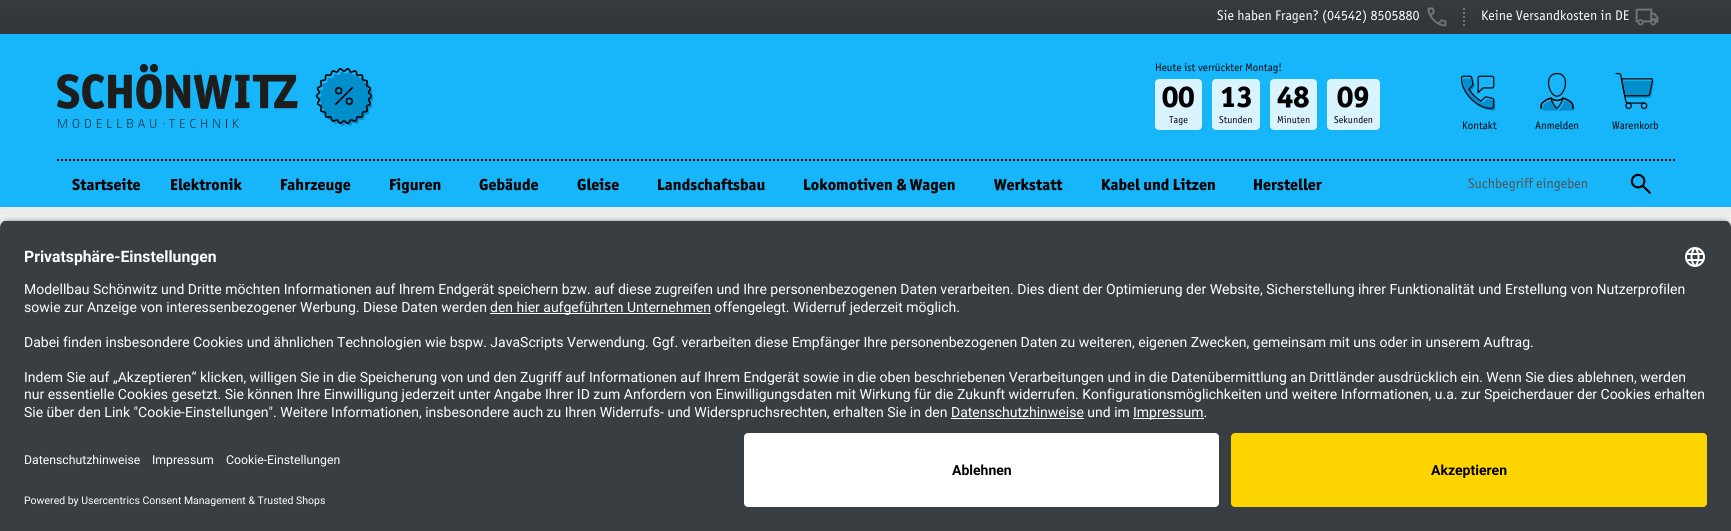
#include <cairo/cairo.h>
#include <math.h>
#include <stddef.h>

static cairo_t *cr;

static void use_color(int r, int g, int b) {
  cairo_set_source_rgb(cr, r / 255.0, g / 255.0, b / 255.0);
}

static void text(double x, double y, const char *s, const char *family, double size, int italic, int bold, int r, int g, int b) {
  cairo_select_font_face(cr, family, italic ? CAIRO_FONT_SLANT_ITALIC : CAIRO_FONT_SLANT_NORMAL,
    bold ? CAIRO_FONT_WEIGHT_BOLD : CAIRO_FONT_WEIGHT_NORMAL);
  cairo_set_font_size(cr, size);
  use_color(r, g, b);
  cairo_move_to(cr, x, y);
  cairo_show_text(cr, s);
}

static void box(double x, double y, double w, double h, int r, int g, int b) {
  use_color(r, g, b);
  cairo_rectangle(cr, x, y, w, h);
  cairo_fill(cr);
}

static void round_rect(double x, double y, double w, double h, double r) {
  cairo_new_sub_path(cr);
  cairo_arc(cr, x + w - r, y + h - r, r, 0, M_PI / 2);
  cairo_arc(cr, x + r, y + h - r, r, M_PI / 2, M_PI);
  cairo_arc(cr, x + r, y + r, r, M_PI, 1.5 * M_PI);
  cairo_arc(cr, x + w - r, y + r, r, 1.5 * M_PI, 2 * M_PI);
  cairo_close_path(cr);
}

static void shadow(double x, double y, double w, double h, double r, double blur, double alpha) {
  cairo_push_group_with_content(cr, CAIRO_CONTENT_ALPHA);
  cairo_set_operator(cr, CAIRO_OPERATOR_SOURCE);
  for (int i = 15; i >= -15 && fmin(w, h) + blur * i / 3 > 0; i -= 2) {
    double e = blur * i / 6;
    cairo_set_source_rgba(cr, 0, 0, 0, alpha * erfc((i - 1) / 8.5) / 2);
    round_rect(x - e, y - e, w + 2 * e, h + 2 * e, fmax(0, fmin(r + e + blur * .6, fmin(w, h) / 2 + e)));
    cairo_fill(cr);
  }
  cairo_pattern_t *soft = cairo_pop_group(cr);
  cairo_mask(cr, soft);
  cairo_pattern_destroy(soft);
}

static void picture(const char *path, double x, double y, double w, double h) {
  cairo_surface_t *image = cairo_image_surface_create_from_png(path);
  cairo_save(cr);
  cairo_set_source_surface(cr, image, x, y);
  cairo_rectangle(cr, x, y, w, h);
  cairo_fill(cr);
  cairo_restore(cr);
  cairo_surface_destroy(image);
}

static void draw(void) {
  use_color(255, 255, 255);
  cairo_paint(cr);
  box(0, 0, 1731, 34, 56, 62, 66);
  picture("img_01.png", 1427, 7, 20, 20);
  cairo_new_path(cr);
  cairo_move_to(cr, 1464, 8);
  cairo_line_to(cr, 1464, 26);
  use_color(128, 128, 128);
  cairo_set_dash(cr, (double[]){2, 2}, 2, 0);
  cairo_stroke(cr);
  picture("img_02.png", 1635, 8, 24, 18);
  use_color(0, 0, 0);
  shadow(-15, 9, 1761, 203, 0, 20, 0.15);
  box(0, 34, 1731, 173, 23, 181, 250);
  picture("img_03.png", 57, 64, 241, 64);
  picture("img_04.png", 315, 68, 59, 58);
  use_color(217, 243, 255);
  round_rect(1155, 79, 47, 51, 4);
  cairo_fill(cr);
  round_rect(1212, 79, 48, 51, 4);
  cairo_fill(cr);
  round_rect(1270, 79, 47, 51, 4);
  cairo_fill(cr);
  round_rect(1327, 79, 53, 51, 4);
  cairo_fill(cr);
  picture("img_05.png", 1460, 75, 36, 36);
  picture("img_06.png", 1540, 72, 35, 39);
  picture("img_07.png", 1615, 72, 39, 38);
  cairo_new_path(cr);
  cairo_move_to(cr, 57, 160);
  cairo_line_to(cr, 1675, 160);
  use_color(0, 0, 0);
  cairo_stroke(cr);
  picture("img_08.png", 1630, 173, 22, 22);
  use_color(0, 0, 0);
  shadow(0, 223, 1731, 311, 8, 3.5, 0.8);
  cairo_save(cr);
  cairo_new_path(cr);
  cairo_move_to(cr, 8, 220);
  cairo_line_to(cr, 1723, 220);
  cairo_curve_to(cr, 1727.5, 220, 1731, 223.5, 1731, 228);
  cairo_line_to(cr, 1731, 425);
  cairo_line_to(cr, 0, 425);
  cairo_line_to(cr, 0, 228);
  cairo_curve_to(cr, 0, 223.5, 3.5, 220, 8, 220);
  cairo_close_path(cr);
  cairo_clip(cr);
  box(0, 221, 1731, 204, 56, 62, 66);
  cairo_restore(cr);
  picture("img_09.png", 1685, 247, 20, 20);
  box(490, 313, 221, 1, 255, 255, 255);
  box(951, 418, 133, 1, 255, 255, 255);
  box(1133, 418, 71, 1, 255, 255, 255);
  box(0, 425, 1731, 106, 56, 62, 66);
  use_color(255, 255, 255);
  round_rect(744, 433, 475, 74, 4);
  cairo_fill(cr);
  use_color(255, 213, 0);
  round_rect(1231, 433, 476, 74, 4);
  cairo_fill(cr);
  text(1217, 20, "Sie haben Fragen? (04542) 8505880", "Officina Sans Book", 14, 0, 0, 255, 255, 255);
  text(1481, 20, "Keine Versandkosten in DE", "Officina Sans Book", 14, 0, 0, 255, 255, 255);
  text(1155, 71, "Heute ist verrückter Montag!", "Officina Sans Book", 11, 0, 0, 0, 0, 0);
  text(1162, 107, "00", "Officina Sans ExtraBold", 30, 0, 1, 0, 0, 0);
  text(1169, 123, "Tage", "Officina Sans Book", 10, 0, 0, 0, 0, 0);
  text(1220, 107, "13", "Officina Sans ExtraBold", 30, 0, 1, 0, 0, 0);
  text(1219, 123, "Stunden", "Officina Sans Book", 10, 0, 0, 0, 0, 0);
  text(1277, 107, "48", "Officina Sans ExtraBold", 30, 0, 1, 0, 0, 0);
  text(1277, 123, "Minuten", "Officina Sans Book", 10, 0, 0, 0, 0, 0);
  text(1337, 107, "09", "Officina Sans ExtraBold", 30, 0, 1, 0, 0, 0);
  text(1334, 123, "Sekunden", "Officina Sans Book", 10, 0, 0, 0, 0, 0);
  text(1462, 129, "Kontakt", "Officina Sans Book", 11, 0, 0, 0, 0, 0);
  text(1535, 129, "Anmelden", "Officina Sans Book", 11, 0, 0, 0, 0, 0);
  text(1612, 129, "Warenkorb", "Officina Sans Book", 11, 0, 0, 0, 0, 0);
  text(72, 190, "Startseite", "Officina Sans ExtraBold", 16, 0, 1, 0, 0, 0);
  text(170, 190, "Elektronik", "Officina Sans ExtraBold", 16, 0, 1, 0, 0, 0);
  text(280, 190, "Fahrzeuge", "Officina Sans ExtraBold", 16, 0, 1, 0, 0, 0);
  text(389, 190, "Figuren", "Officina Sans ExtraBold", 16, 0, 1, 0, 0, 0);
  text(479, 190, "Gebäude", "Officina Sans ExtraBold", 16, 0, 1, 0, 0, 0);
  text(577, 190, "Gleise", "Officina Sans ExtraBold", 16, 0, 1, 0, 0, 0);
  text(657, 190, "Landschaftsbau", "Officina Sans ExtraBold", 16, 0, 1, 0, 0, 0);
  text(803, 190, "Lokomotiven & Wagen", "Officina Sans ExtraBold", 16, 0, 1, 0, 0, 0);
  text(994, 190, "Werkstatt", "Officina Sans ExtraBold", 16, 0, 1, 0, 0, 0);
  text(1101, 190, "Kabel und Litzen", "Officina Sans ExtraBold", 16, 0, 1, 0, 0, 0);
  text(1253, 190, "Hersteller", "Officina Sans ExtraBold", 16, 0, 1, 0, 0, 0);
  text(1468, 188, "Suchbegriff eingeben", "Officina Sans Book", 14, 0, 0, 82, 82, 82);
  text(24, 262, "Privatsphäre-Einstellungen", "Roboto", 15.75, 0, 1, 255, 255, 255);
  text(24, 294, "Modellbau Schönwitz und Dritte möchten Informationen auf Ihrem Endgerät speichern bzw. auf diese zugreifen und Ihre personenbezogenen Daten verarbeiten. Dies dient der Optimierung der Website, Sicherstellung ihrer Funktionalität und Erstellung von Nutzerprofilen", "Roboto", 14, 0, 0, 255, 255, 255);
  text(24, 312, "sowie zur Anzeige von interessenbezogener Werbung. Diese Daten werden", "Roboto", 14, 0, 0, 255, 255, 255);
  text(490, 312, "den hier aufgeführten Unternehmen offengelegt. Widerruf jederzeit möglich.", "Roboto", 14, 0, 0, 255, 255, 255);
  text(24, 347, "Dabei finden insbesondere Cookies und ähnlichen Technologien wie bspw. JavaScripts Verwendung. Ggf. verarbeiten diese Empfänger Ihre personenbezogenen Daten zu weiteren, eigenen Zwecken, gemeinsam mit uns oder in unserem Auftrag.", "Roboto", 14, 0, 0, 255, 255, 255);
  text(24, 382, "Indem Sie auf „Akzeptieren“ klicken, willigen Sie in die Speicherung von und den Zugriff auf Informationen auf Ihrem Endgerät sowie in die oben beschriebenen Verarbeitungen und in die Datenübermittlung an Drittländer ausdrücklich ein. Wenn Sie dies ablehnen, werden", "Roboto", 14, 0, 0, 255, 255, 255);
  text(24, 399, "nur essentielle Cookies gesetzt. Sie können Ihre Einwilligung jederzeit unter Angabe Ihrer ID zum Anfordern von Einwilligungsdaten mit Wirkung für die Zukunft widerrufen. Konfigurationsmöglichkeiten und weitere Informationen, u.a. zur Speicherdauer der Cookies erhalten", "Roboto", 14, 0, 0, 255, 255, 255);
  text(24, 417, "Sie über den Link \"Cookie-Einstellungen\". Weitere Informationen, insbesondere auch zu Ihren Widerrufs- und Widerspruchsrechten, erhalten Sie in den Datenschutzhinweise und im", "Roboto", 14, 0, 0, 255, 255, 255);
  text(1133, 417, "Impressum.", "Roboto", 14, 0, 0, 255, 255, 255);
  text(24, 464, "Datenschutzhinweise", "Roboto", 12.25, 0, 0, 255, 255, 255);
  text(152, 464, "Impressum", "Roboto", 12.25, 0, 0, 255, 255, 255);
  text(226, 464, "Cookie-Einstellungen", "Roboto", 12.25, 0, 0, 255, 255, 255);
  text(24, 504, "Powered by Usercentrics Consent Management & Trusted Shops", "Roboto", 10.5, 0, 0, 255, 255, 255);
  text(952, 475, "Ablehnen", "Roboto", 14, 0, 1, 0, 0, 0);
  text(1431, 475, "Akzeptieren", "Roboto", 14, 0, 1, 0, 0, 0);
}

int main(void) {
  cairo_surface_t *surface = cairo_image_surface_create(CAIRO_FORMAT_RGB24, 1731, 531);
  cr = cairo_create(surface);
  cairo_font_options_t *options = cairo_font_options_create();
  cairo_font_options_set_hint_metrics(options, CAIRO_HINT_METRICS_OFF);
  cairo_font_options_set_hint_style(options, CAIRO_HINT_STYLE_NONE);
  cairo_set_font_options(cr, options);
  cairo_set_miter_limit(cr, 4);
  draw();
  cairo_surface_write_to_png(surface, "out.png");
  cairo_font_options_destroy(options);
  cairo_destroy(cr);
  cairo_surface_destroy(surface);
  return 0;
}
